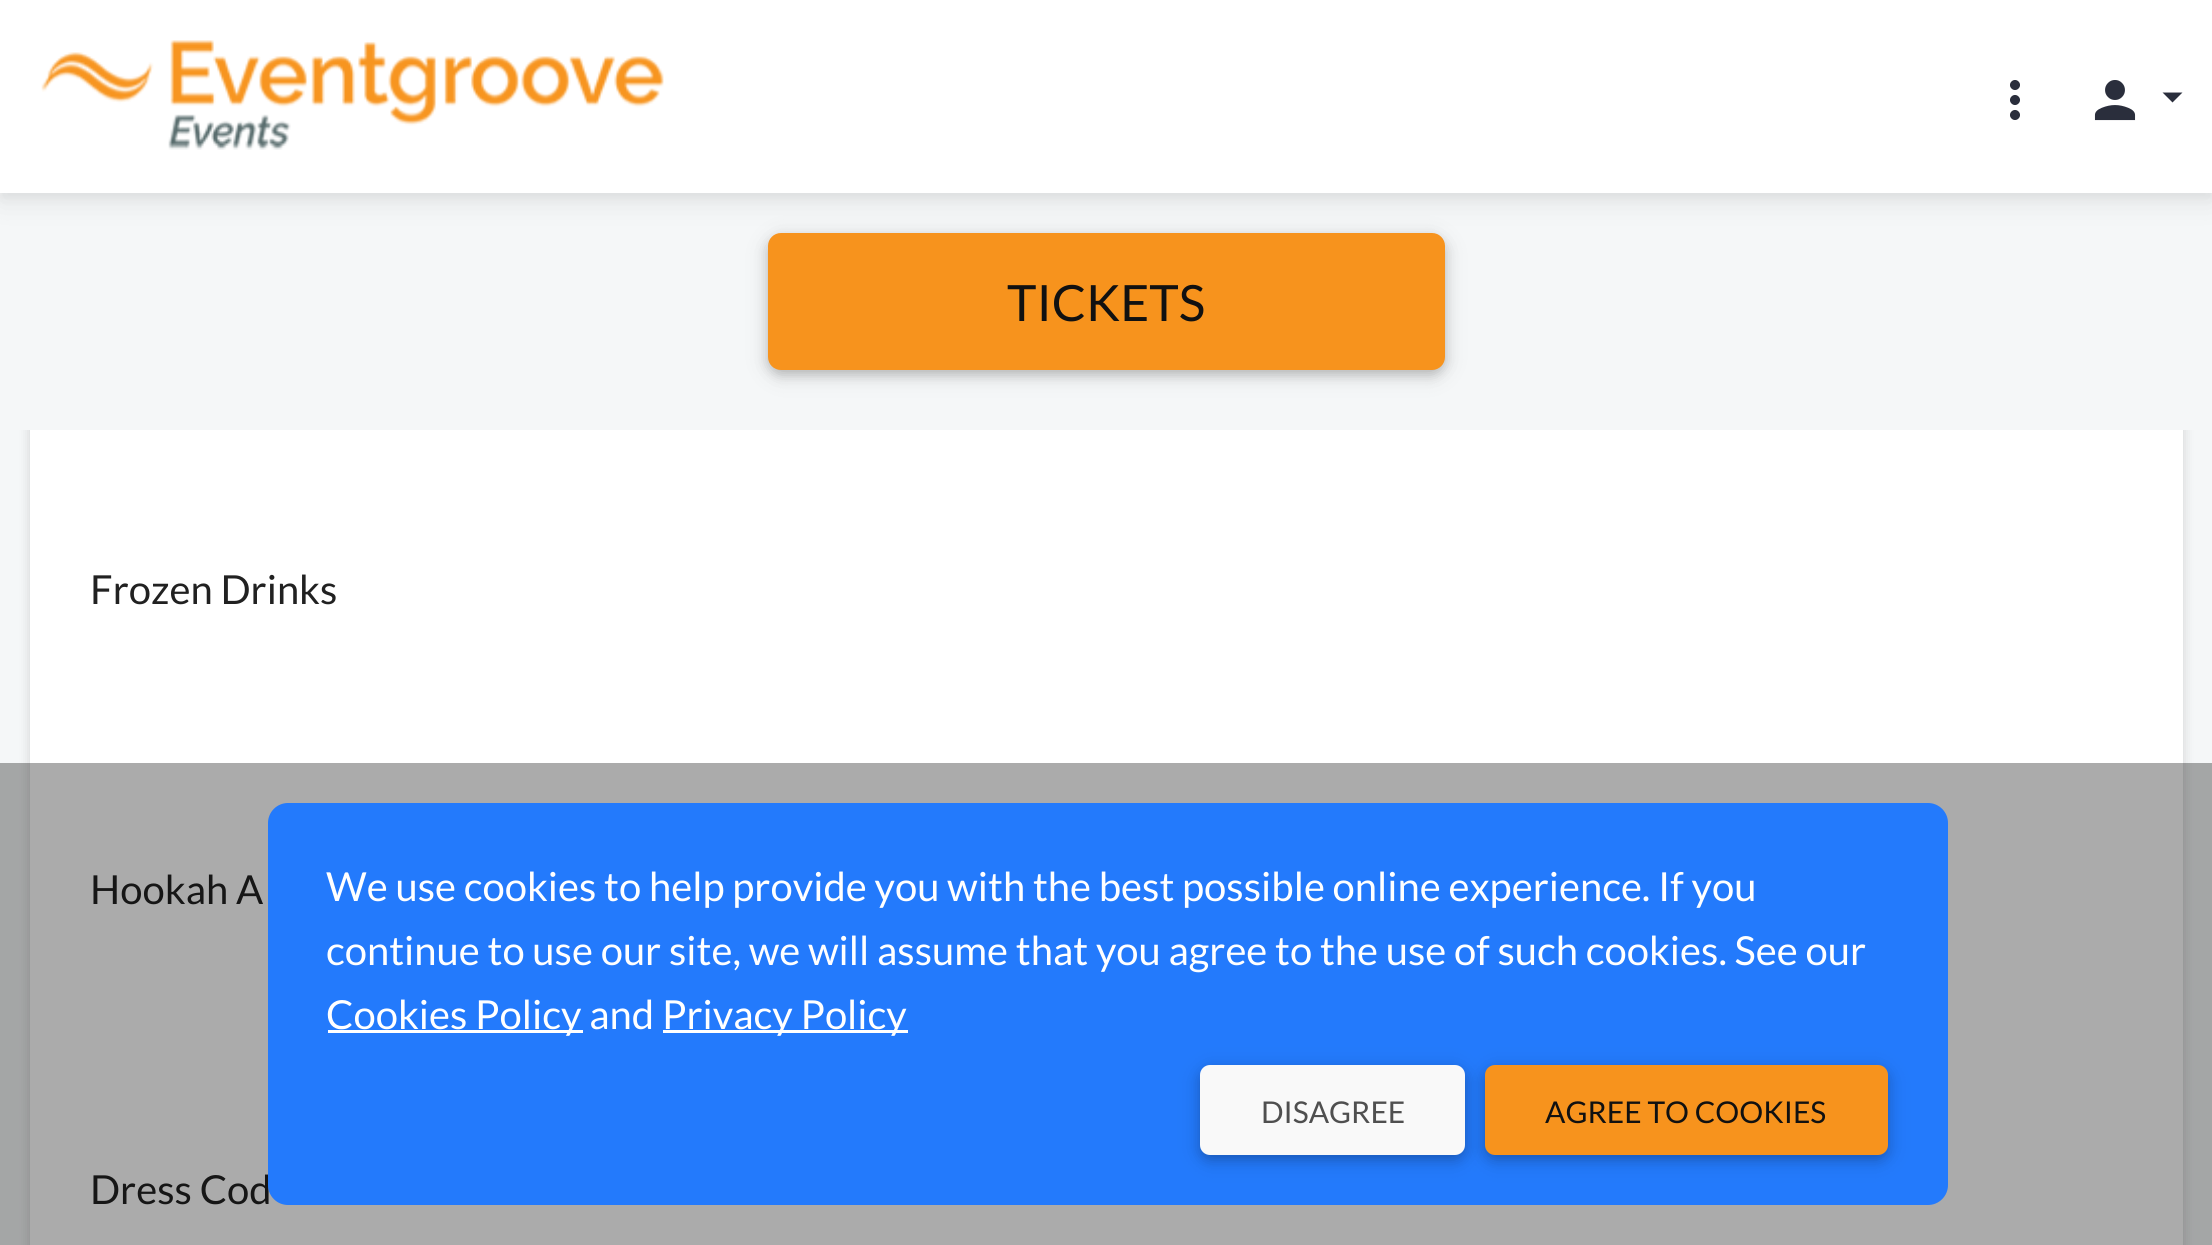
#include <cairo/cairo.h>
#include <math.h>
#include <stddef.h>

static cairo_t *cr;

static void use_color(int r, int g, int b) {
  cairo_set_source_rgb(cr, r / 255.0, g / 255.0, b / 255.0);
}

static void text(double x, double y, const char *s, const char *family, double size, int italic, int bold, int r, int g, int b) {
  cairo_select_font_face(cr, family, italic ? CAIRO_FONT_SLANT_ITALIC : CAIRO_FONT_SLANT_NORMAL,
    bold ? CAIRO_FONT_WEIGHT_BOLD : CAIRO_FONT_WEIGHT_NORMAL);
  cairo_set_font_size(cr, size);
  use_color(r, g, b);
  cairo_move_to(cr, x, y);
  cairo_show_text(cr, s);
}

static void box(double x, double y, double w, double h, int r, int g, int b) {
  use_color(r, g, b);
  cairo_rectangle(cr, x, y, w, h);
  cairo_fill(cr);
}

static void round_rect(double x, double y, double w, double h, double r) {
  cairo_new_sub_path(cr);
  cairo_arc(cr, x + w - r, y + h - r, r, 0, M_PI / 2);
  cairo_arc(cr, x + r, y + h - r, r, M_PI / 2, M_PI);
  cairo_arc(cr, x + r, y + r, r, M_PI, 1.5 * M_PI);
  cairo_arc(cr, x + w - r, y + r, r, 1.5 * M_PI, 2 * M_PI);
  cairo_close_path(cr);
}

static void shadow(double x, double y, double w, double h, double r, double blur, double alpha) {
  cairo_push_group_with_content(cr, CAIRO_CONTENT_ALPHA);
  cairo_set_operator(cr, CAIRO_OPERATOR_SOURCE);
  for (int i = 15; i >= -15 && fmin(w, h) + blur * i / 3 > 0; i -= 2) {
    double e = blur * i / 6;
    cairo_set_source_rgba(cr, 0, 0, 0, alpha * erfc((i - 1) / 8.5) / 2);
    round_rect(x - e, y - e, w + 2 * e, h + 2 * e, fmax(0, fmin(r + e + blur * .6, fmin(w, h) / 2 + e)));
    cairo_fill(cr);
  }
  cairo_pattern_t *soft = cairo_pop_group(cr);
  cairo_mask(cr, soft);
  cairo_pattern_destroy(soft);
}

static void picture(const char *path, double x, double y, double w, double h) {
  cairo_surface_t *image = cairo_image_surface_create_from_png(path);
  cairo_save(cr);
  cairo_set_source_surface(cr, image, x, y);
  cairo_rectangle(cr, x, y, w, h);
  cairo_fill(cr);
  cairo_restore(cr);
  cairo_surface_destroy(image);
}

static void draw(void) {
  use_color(245, 247, 248);
  cairo_paint(cr);
  use_color(0, 0, 0);
  shadow(30, -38, 2153, 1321, 20, 6, 0.15);
  cairo_rectangle(cr, 20, 183, 2173, 237);
  use_color(245, 247, 248);
  cairo_set_line_width(cr, 20);
  cairo_stroke(cr);
  box(30, 193, 2153, 217, 245, 247, 248);
  use_color(0, 0, 0);
  shadow(0, 5, 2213, 193, 0, 5, 0.05);
  shadow(768, 238, 677, 137, 13, 12.5, 0.1);
  shadow(768, 238, 677, 137, 13, 6, 0.2);
  use_color(247, 147, 29);
  round_rect(768, 233, 677, 137, 13);
  cairo_fill(cr);
  use_color(0, 0, 0);
  shadow(0, 10, 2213, 193, 0, 15, 0.07);
  box(0, 0, 2212, 193, 255, 255, 255);
  picture("img_01.png", 41, 40, 623, 110);
  picture("img_02.png", 2010, 80, 10, 40);
  picture("img_03.png", 2094, 80, 42, 41);
  use_color(42, 46, 60);
  cairo_new_path(cr);
  cairo_move_to(cr, 2162.5, 92.5);
  cairo_line_to(cr, 2182.5, 92.5);
  cairo_line_to(cr, 2172.5, 102.5);
  cairo_close_path(cr);
  cairo_fill(cr);
  box(30, 430, 2153, 815, 255, 255, 255);
  text(1007, 321, "TICKETS", "Lato", 50, 0, 0, 17, 17, 17);
  text(90, 604, "Frozen Drinks", "Lato", 40, 0, 0, 33, 33, 33);
  text(90, 904, "Hookah A", "Lato", 40, 0, 0, 33, 33, 33);
  text(90, 1204, "Dress Cod", "Lato", 40, 0, 0, 33, 33, 33);
  cairo_set_source_rgba(cr, 0, 0, 0, 0.33);
  cairo_rectangle(cr, 0, 763, 2212, 482);
  cairo_fill(cr);
  use_color(35, 122, 252);
  round_rect(268, 803, 1680, 402, 20);
  cairo_fill(cr);
  text(326, 901, "We use cookies to help provide you with the best possible online experience. If you", "Lato", 40, 0, 0, 255, 255, 255);
  text(326, 965, "continue to use our site, we will assume that you agree to the use of such cookies. See our", "Lato", 40, 0, 0, 255, 255, 255);
  box(328, 1030, 255, 3, 255, 255, 255);
  text(326, 1029, "Cookies Policy and", "Lato", 40, 0, 0, 255, 255, 255);
  box(663, 1030, 245, 3, 255, 255, 255);
  text(662, 1029, "Privacy Policy", "Lato", 40, 0, 0, 255, 255, 255);
  use_color(0, 0, 0);
  shadow(1200, 1070, 265, 90, 10, 6, 0.2);
  shadow(1485, 1070, 403, 90, 10, 12.5, 0.1);
  shadow(1485, 1070, 403, 90, 10, 6, 0.2);
  use_color(247, 147, 29);
  round_rect(1485, 1065, 403, 90, 10);
  cairo_fill(cr);
  use_color(0, 0, 0);
  shadow(1200, 1070, 265, 90, 10, 12.5, 0.1);
  use_color(249, 249, 249);
  round_rect(1200, 1065, 265, 90, 10);
  cairo_fill(cr);
  text(1261, 1123, "DISAGREE", "Lato", 30, 0, 0, 79, 79, 79);
  text(1545, 1123, "AGREE TO COOKIES", "Lato", 30, 0, 0, 17, 17, 17);
}

int main(void) {
  cairo_surface_t *surface = cairo_image_surface_create(CAIRO_FORMAT_RGB24, 2212, 1245);
  cr = cairo_create(surface);
  cairo_font_options_t *options = cairo_font_options_create();
  cairo_font_options_set_hint_metrics(options, CAIRO_HINT_METRICS_OFF);
  cairo_font_options_set_hint_style(options, CAIRO_HINT_STYLE_NONE);
  cairo_set_font_options(cr, options);
  cairo_set_miter_limit(cr, 4);
  draw();
  cairo_surface_write_to_png(surface, "out.png");
  cairo_font_options_destroy(options);
  cairo_destroy(cr);
  cairo_surface_destroy(surface);
  return 0;
}
